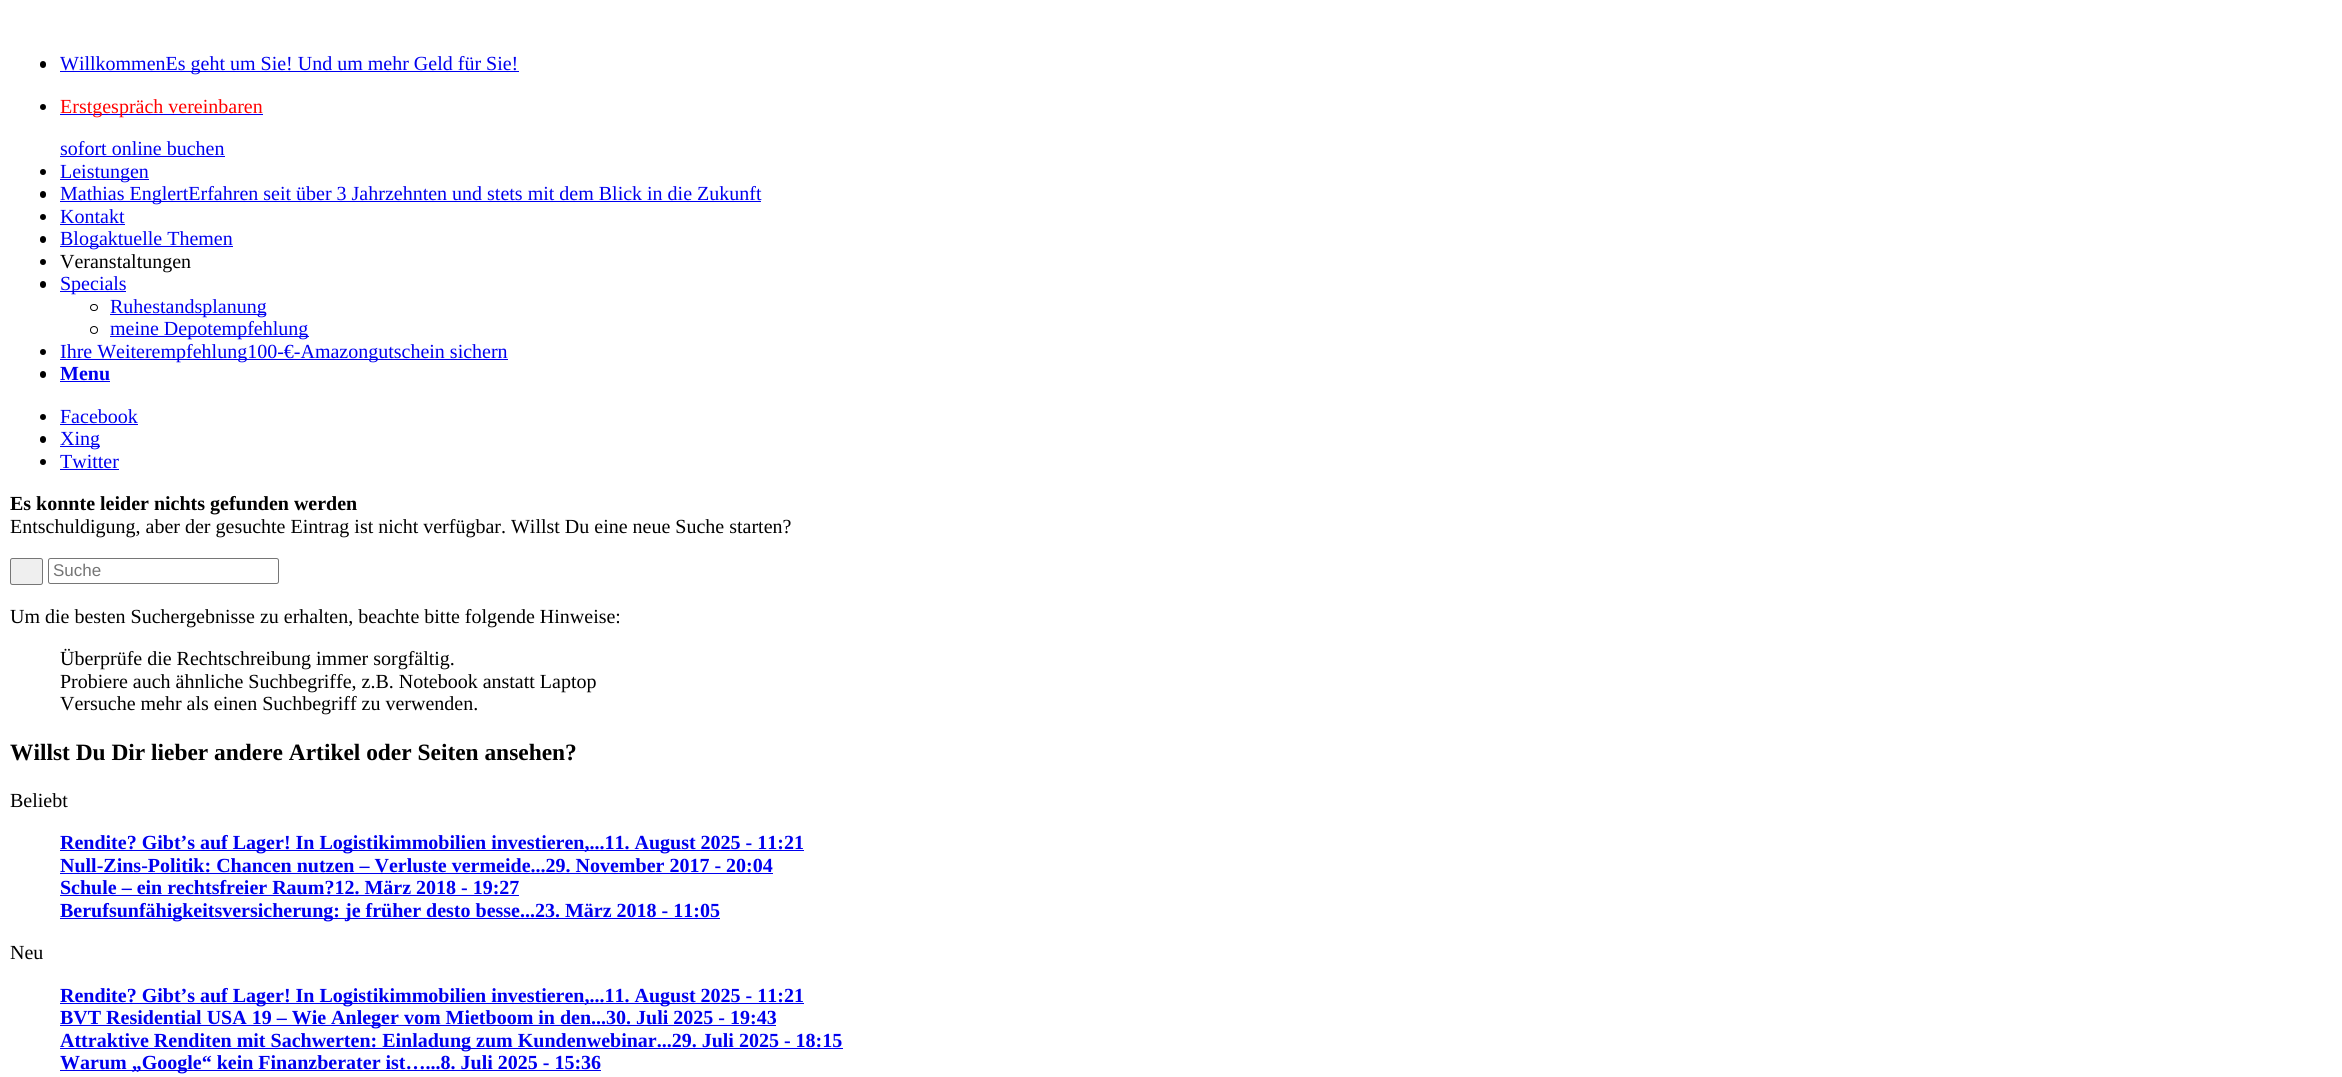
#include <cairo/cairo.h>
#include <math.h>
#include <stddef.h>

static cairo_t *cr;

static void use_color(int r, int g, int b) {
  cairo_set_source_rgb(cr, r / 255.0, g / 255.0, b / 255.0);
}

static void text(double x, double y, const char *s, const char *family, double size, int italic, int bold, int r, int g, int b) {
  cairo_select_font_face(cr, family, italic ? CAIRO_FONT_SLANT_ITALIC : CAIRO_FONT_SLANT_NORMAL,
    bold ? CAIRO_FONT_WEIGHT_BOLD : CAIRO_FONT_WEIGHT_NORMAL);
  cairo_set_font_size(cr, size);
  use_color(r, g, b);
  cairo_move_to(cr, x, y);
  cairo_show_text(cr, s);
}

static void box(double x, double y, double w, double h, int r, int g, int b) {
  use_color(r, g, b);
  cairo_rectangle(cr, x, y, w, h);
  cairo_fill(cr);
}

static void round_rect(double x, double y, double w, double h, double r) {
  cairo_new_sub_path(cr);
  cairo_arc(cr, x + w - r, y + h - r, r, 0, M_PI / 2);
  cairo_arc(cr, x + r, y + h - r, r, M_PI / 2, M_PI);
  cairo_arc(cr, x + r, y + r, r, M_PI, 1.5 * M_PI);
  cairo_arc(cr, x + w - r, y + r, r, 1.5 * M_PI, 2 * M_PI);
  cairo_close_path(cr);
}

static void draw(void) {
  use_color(255, 255, 255);
  cairo_paint(cr);
  use_color(0, 0, 0);
  round_rect(40, 61, 6, 7, 3);
  cairo_fill(cr);
  box(60, 71, 459, 1, 0, 0, 238);
  use_color(0, 0, 0);
  cairo_arc(cr, 43, 107, 3, 0, 2 * M_PI);
  cairo_fill(cr);
  box(60, 114, 203, 1, 0, 0, 238);
  box(60, 156, 165, 1, 0, 0, 238);
  use_color(0, 0, 0);
  cairo_arc(cr, 43, 172, 3, 0, 2 * M_PI);
  cairo_fill(cr);
  box(60, 179, 89, 1, 0, 0, 238);
  use_color(0, 0, 0);
  round_rect(40, 191, 6, 7, 3);
  cairo_fill(cr);
  box(60, 201, 701, 1, 0, 0, 238);
  use_color(0, 0, 0);
  cairo_arc(cr, 43, 217, 3, 0, 2 * M_PI);
  cairo_fill(cr);
  box(60, 224, 65, 1, 0, 0, 238);
  use_color(0, 0, 0);
  round_rect(40, 236, 6, 7, 3);
  cairo_fill(cr);
  box(60, 246, 173, 1, 0, 0, 238);
  use_color(0, 0, 0);
  cairo_arc(cr, 43, 262, 3, 0, 2 * M_PI);
  cairo_fill(cr);
  round_rect(40, 281, 6, 7, 3);
  cairo_fill(cr);
  box(60, 291, 66, 1, 0, 0, 238);
  round_rect(90.5, 304.5, 7, 6, 3);
  use_color(0, 0, 0);
  cairo_set_line_width(cr, 1);
  cairo_stroke(cr);
  box(110, 314, 156, 1, 0, 0, 238);
  cairo_arc(cr, 94, 330, 3.5, 0, 2 * M_PI);
  use_color(0, 0, 0);
  cairo_stroke(cr);
  box(110, 336, 199, 1, 0, 0, 238);
  use_color(0, 0, 0);
  cairo_arc(cr, 43, 352, 3, 0, 2 * M_PI);
  cairo_fill(cr);
  box(60, 359, 448, 1, 0, 0, 238);
  use_color(0, 0, 0);
  round_rect(40, 371, 6, 7, 3);
  cairo_fill(cr);
  box(60, 381, 50, 1, 0, 0, 238);
  use_color(0, 0, 0);
  cairo_arc(cr, 43, 417, 3, 0, 2 * M_PI);
  cairo_fill(cr);
  box(60, 424, 78, 1, 0, 0, 238);
  use_color(0, 0, 0);
  round_rect(40, 436, 6, 7, 3);
  cairo_fill(cr);
  box(60, 446, 40, 1, 0, 0, 238);
  use_color(0, 0, 0);
  cairo_arc(cr, 43, 462, 3, 0, 2 * M_PI);
  cairo_fill(cr);
  box(60, 469, 59, 1, 0, 0, 238);
  use_color(239, 239, 239);
  round_rect(10.5, 558.5, 32, 26, 2);
  cairo_fill_preserve(cr);
  use_color(118, 118, 118);
  cairo_stroke(cr);
  round_rect(48.5, 558.5, 230, 25, 2);
  cairo_stroke(cr);
  box(60, 850, 744, 1, 0, 0, 238);
  box(60, 873, 713, 1, 0, 0, 238);
  box(60, 895, 459, 1, 0, 0, 238);
  box(60, 918, 660, 1, 0, 0, 238);
  box(60, 1003, 744, 1, 0, 0, 238);
  box(60, 1025, 716, 1, 0, 0, 238);
  box(60, 1048, 783, 1, 0, 0, 238);
  box(60, 1070, 541, 1, 0, 0, 238);
  text(60, 70, "WillkommenEs geht um Sie! Und um mehr Geld für Sie!", "Liberation Serif", 20, 0, 0, 0, 0, 238);
  text(60, 113, "Erstgespräch vereinbaren", "Liberation Serif", 20, 0, 0, 255, 0, 0);
  text(60, 155, "sofort online buchen", "Liberation Serif", 20, 0, 0, 0, 0, 238);
  text(60, 178, "Leistungen", "Liberation Serif", 20, 0, 0, 0, 0, 238);
  text(60, 200, "Mathias EnglertErfahren seit über 3 Jahrzehnten und stets mit dem Blick in die Zukunft", "Liberation Serif", 20, 0, 0, 0, 0, 238);
  text(60, 223, "Kontakt", "Liberation Serif", 20, 0, 0, 0, 0, 238);
  text(60, 245, "Blogaktuelle Themen", "Liberation Serif", 20, 0, 0, 0, 0, 238);
  text(60, 268, "Veranstaltungen", "Liberation Serif", 20, 0, 0, 0, 0, 0);
  text(60, 290, "Specials", "Liberation Serif", 20, 0, 0, 0, 0, 238);
  text(110, 313, "Ruhestandsplanung", "Liberation Serif", 20, 0, 0, 0, 0, 238);
  text(110, 335, "meine Depotempfehlung", "Liberation Serif", 20, 0, 0, 0, 0, 238);
  text(60, 358, "Ihre Weiterempfehlung100-€-Amazongutschein sichern", "Liberation Serif", 20, 0, 0, 0, 0, 238);
  text(60, 380, "Menu", "Liberation Serif", 20, 0, 1, 0, 0, 238);
  text(60, 423, "Facebook", "Liberation Serif", 20, 0, 0, 0, 0, 238);
  text(60, 445, "Xing", "Liberation Serif", 20, 0, 0, 0, 0, 238);
  text(60, 468, "Twitter", "Liberation Serif", 20, 0, 0, 0, 0, 238);
  text(10, 510, "Es konnte leider nichts gefunden werden", "Liberation Serif", 20, 0, 1, 0, 0, 0);
  text(10, 533, "Entschuldigung, aber der gesuchte Eintrag ist nicht verfügbar. Willst Du eine neue Suche starten?", "Liberation Serif", 20, 0, 0, 0, 0, 0);
  text(53, 576, "Suche", "Liberation Sans", 17, 0, 0, 117, 117, 117);
  text(10, 623, "Um die besten Suchergebnisse zu erhalten, beachte bitte folgende Hinweise:", "Liberation Serif", 20, 0, 0, 0, 0, 0);
  text(60, 665, "Überprüfe die Rechtschreibung immer sorgfältig.", "Liberation Serif", 20, 0, 0, 0, 0, 0);
  text(60, 688, "Probiere auch ähnliche Suchbegriffe, z.B. Notebook anstatt Laptop", "Liberation Serif", 20, 0, 0, 0, 0, 0);
  text(60, 710, "Versuche mehr als einen Suchbegriff zu verwenden.", "Liberation Serif", 20, 0, 0, 0, 0, 0);
  text(10, 760, "Willst Du Dir lieber andere Artikel oder Seiten ansehen?", "Liberation Serif", 23.4, 0, 1, 0, 0, 0);
  text(10, 807, "Beliebt", "Liberation Serif", 20, 0, 0, 0, 0, 0);
  text(60, 849, "Rendite? Gibt’s auf Lager! In Logistikimmobilien investieren,...11. August 2025 - 11:21", "Liberation Serif", 20, 0, 1, 0, 0, 238);
  text(60, 872, "Null-Zins-Politik: Chancen nutzen – Verluste vermeide...29. November 2017 - 20:04", "Liberation Serif", 20, 0, 1, 0, 0, 238);
  text(60, 894, "Schule – ein rechtsfreier Raum?12. März 2018 - 19:27", "Liberation Serif", 20, 0, 1, 0, 0, 238);
  text(60, 917, "Berufsunfähigkeitsversicherung: je früher desto besse...23. März 2018 - 11:05", "Liberation Serif", 20, 0, 1, 0, 0, 238);
  text(10, 959, "Neu", "Liberation Serif", 20, 0, 0, 0, 0, 0);
  text(60, 1002, "Rendite? Gibt’s auf Lager! In Logistikimmobilien investieren,...11. August 2025 - 11:21", "Liberation Serif", 20, 0, 1, 0, 0, 238);
  text(60, 1024, "BVT Residential USA 19 – Wie Anleger vom Mietboom in den...30. Juli 2025 - 19:43", "Liberation Serif", 20, 0, 1, 0, 0, 238);
  text(60, 1047, "Attraktive Renditen mit Sachwerten: Einladung zum Kundenwebinar...29. Juli 2025 - 18:15", "Liberation Serif", 20, 0, 1, 0, 0, 238);
  text(60, 1069, "Warum „Google“ kein Finanzberater ist…...8. Juli 2025 - 15:36", "Liberation Serif", 20, 0, 1, 0, 0, 238);
}

int main(void) {
  cairo_surface_t *surface = cairo_image_surface_create(CAIRO_FORMAT_RGB24, 2342, 1077);
  cr = cairo_create(surface);
  cairo_font_options_t *options = cairo_font_options_create();
  cairo_font_options_set_hint_metrics(options, CAIRO_HINT_METRICS_OFF);
  cairo_font_options_set_hint_style(options, CAIRO_HINT_STYLE_NONE);
  cairo_set_font_options(cr, options);
  cairo_set_miter_limit(cr, 4);
  draw();
  cairo_surface_write_to_png(surface, "out.png");
  cairo_font_options_destroy(options);
  cairo_destroy(cr);
  cairo_surface_destroy(surface);
  return 0;
}
